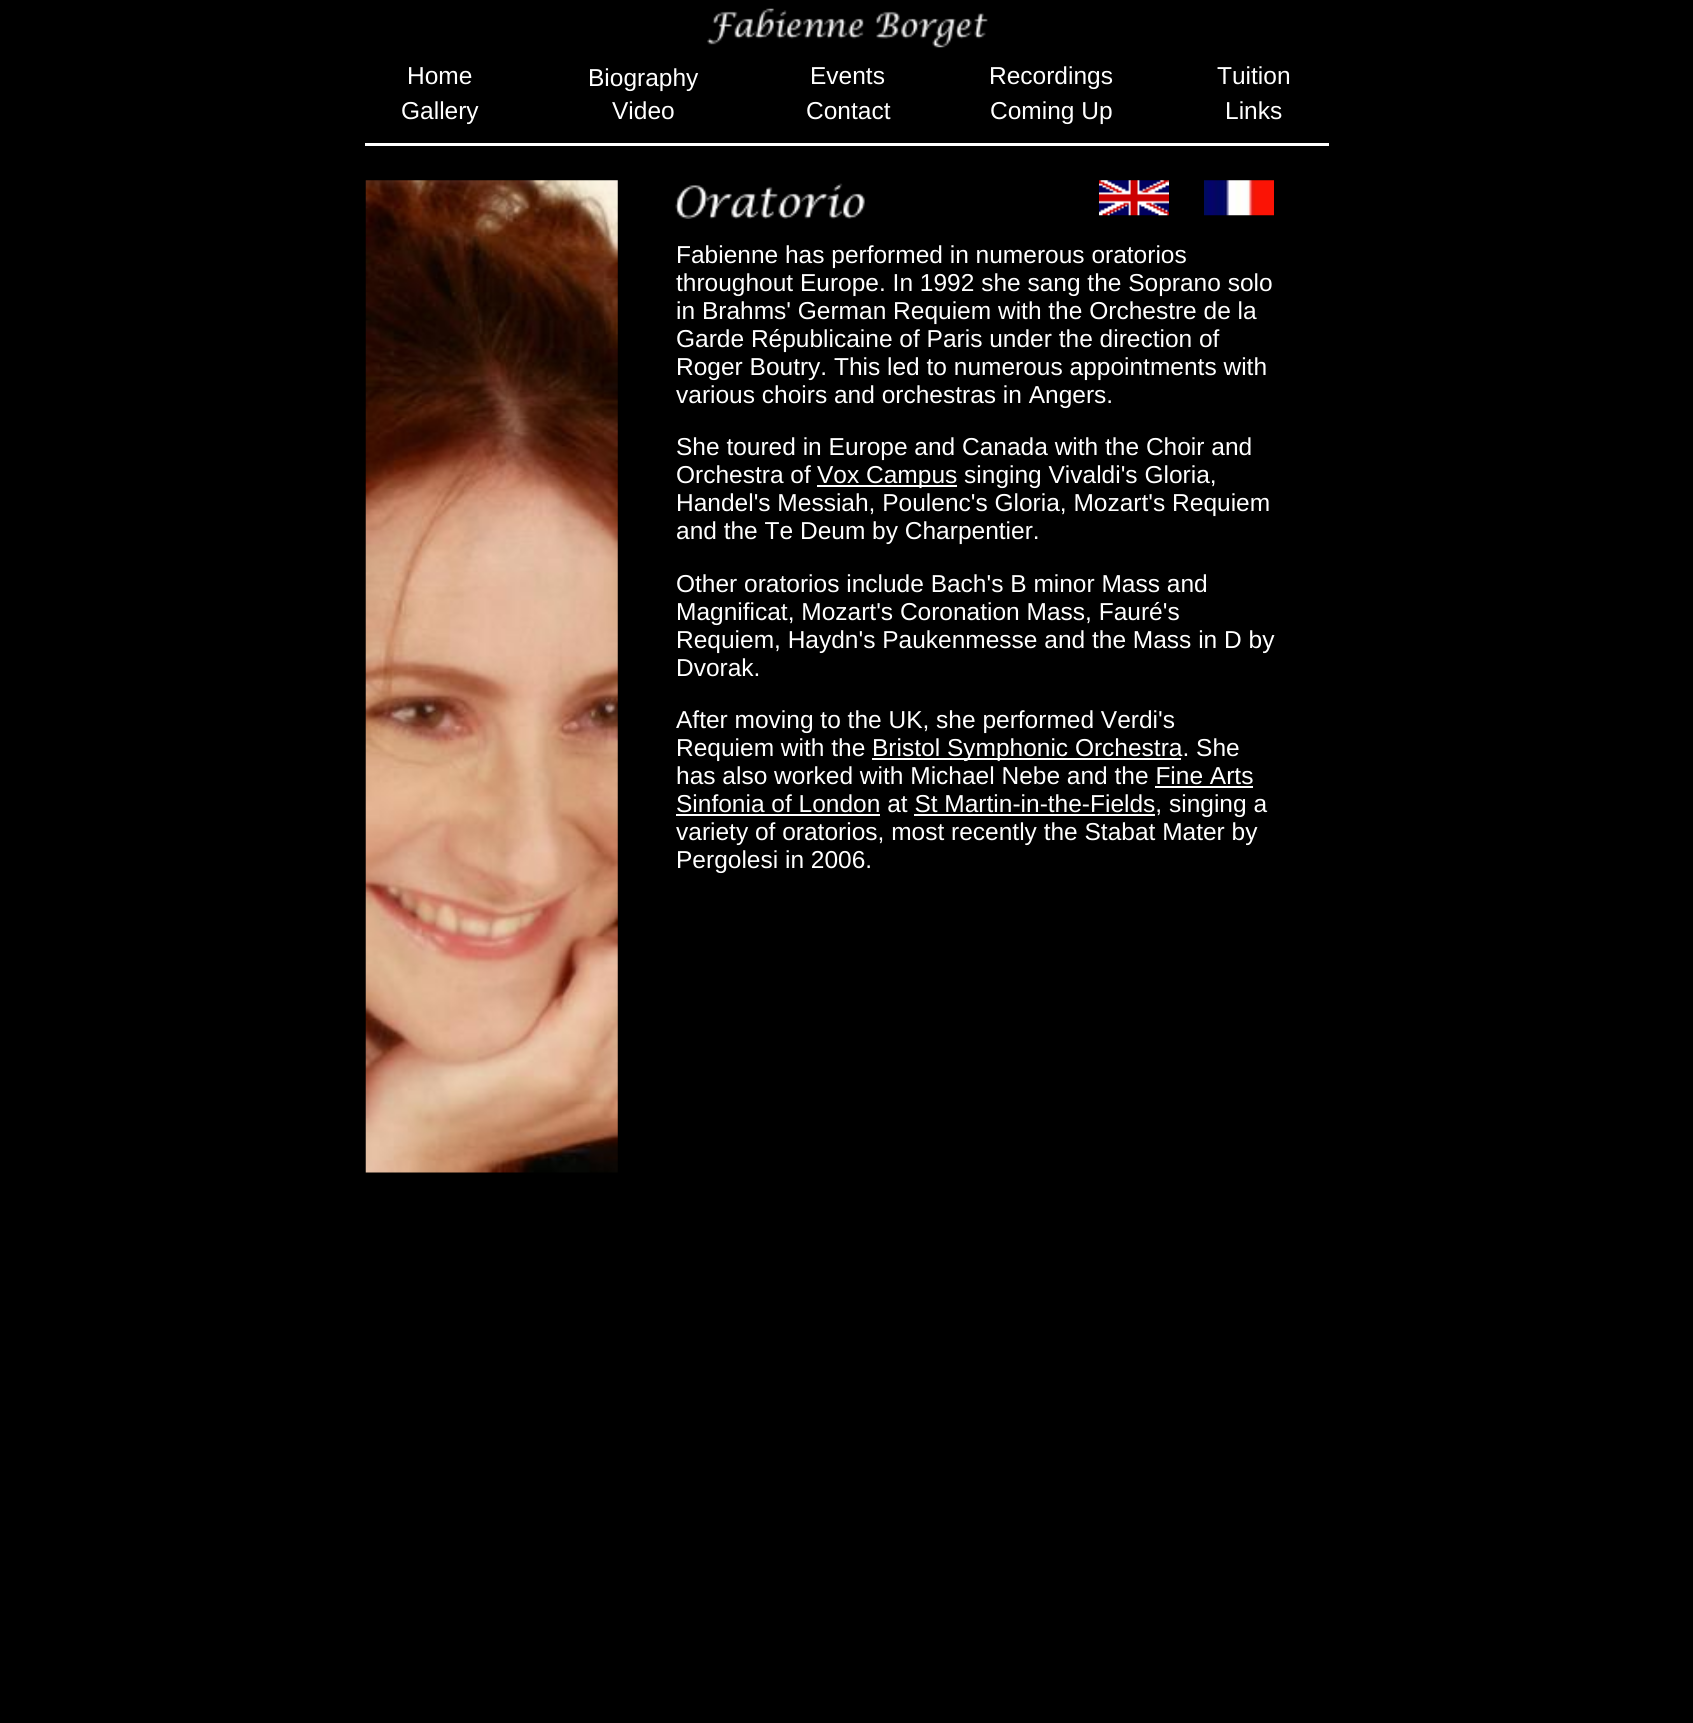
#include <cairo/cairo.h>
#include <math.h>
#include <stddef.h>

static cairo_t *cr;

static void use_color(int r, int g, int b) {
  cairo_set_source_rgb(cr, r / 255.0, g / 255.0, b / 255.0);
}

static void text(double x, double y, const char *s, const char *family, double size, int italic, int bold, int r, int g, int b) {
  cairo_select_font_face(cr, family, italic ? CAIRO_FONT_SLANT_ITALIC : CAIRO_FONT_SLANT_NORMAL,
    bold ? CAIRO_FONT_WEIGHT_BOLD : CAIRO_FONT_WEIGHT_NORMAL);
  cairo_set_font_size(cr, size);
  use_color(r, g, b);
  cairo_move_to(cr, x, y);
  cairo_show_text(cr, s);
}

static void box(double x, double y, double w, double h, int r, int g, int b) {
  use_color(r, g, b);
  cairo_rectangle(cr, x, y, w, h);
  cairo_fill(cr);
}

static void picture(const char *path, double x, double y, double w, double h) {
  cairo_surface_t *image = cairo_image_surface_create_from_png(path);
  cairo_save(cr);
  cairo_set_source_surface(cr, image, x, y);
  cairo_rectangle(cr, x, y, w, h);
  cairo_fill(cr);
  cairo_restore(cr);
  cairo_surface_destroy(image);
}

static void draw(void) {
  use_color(0, 0, 0);
  cairo_paint(cr);
  picture("img_01.png", 707, 8, 281, 40);
  box(365, 143, 964, 3, 255, 255, 255);
  picture("img_02.png", 365, 180, 253, 993);
  picture("img_03.png", 1099, 180, 70, 36);
  picture("img_04.png", 1204, 180, 70, 36);
  picture("img_05.png", 675, 183, 190, 36);
  box(817, 485, 140, 2, 255, 255, 255);
  box(872, 758, 309, 2, 255, 255, 255);
  box(1155, 786, 98, 2, 255, 255, 255);
  box(676, 814, 204, 2, 255, 255, 255);
  box(914, 814, 241, 2, 255, 255, 255);
  text(407, 84, "Home", "Liberation Sans", 24.5, 0, 0, 255, 255, 255);
  text(810, 84, "Events", "Liberation Sans", 24.5, 0, 0, 255, 255, 255);
  text(989, 84, "Recordings", "Liberation Sans", 24.5, 0, 0, 255, 255, 255);
  text(1217, 84, "Tuition", "Liberation Sans", 24.5, 0, 0, 255, 255, 255);
  text(588, 86, "Biography", "Liberation Sans", 24.5, 0, 0, 255, 255, 255);
  text(401, 119, "Gallery", "Liberation Sans", 24.5, 0, 0, 255, 255, 255);
  text(612, 119, "Video", "Liberation Sans", 24.5, 0, 0, 255, 255, 255);
  text(806, 119, "Contact", "Liberation Sans", 24.5, 0, 0, 255, 255, 255);
  text(990, 119, "Coming Up", "Liberation Sans", 24.5, 0, 0, 255, 255, 255);
  text(1225, 119, "Links", "Liberation Sans", 24.5, 0, 0, 255, 255, 255);
  text(676, 263, "Fabienne has performed in numerous oratorios", "Liberation Sans", 24.5, 0, 0, 255, 255, 255);
  text(676, 291, "throughout Europe. In 1992 she sang the Soprano solo", "Liberation Sans", 24.5, 0, 0, 255, 255, 255);
  text(676, 319, "in Brahms' German Requiem with the Orchestre de la", "Liberation Sans", 24.5, 0, 0, 255, 255, 255);
  text(676, 347, "Garde Républicaine of Paris under the direction of", "Liberation Sans", 24.5, 0, 0, 255, 255, 255);
  text(676, 375, "Roger Boutry. This led to numerous appointments with", "Liberation Sans", 24.5, 0, 0, 255, 255, 255);
  text(676, 403, "various choirs and orchestras in Angers.", "Liberation Sans", 24.5, 0, 0, 255, 255, 255);
  text(676, 455, "She toured in Europe and Canada with the Choir and", "Liberation Sans", 24.5, 0, 0, 255, 255, 255);
  text(676, 483, "Orchestra of", "Liberation Sans", 24.5, 0, 0, 255, 255, 255);
  text(817, 483, "Vox Campus singing Vivaldi's Gloria,", "Liberation Sans", 24.5, 0, 0, 255, 255, 255);
  text(676, 511, "Handel's Messiah, Poulenc's Gloria, Mozart's Requiem", "Liberation Sans", 24.5, 0, 0, 255, 255, 255);
  text(676, 539, "and the Te Deum by Charpentier.", "Liberation Sans", 24.5, 0, 0, 255, 255, 255);
  text(676, 592, "Other oratorios include Bach's B minor Mass and", "Liberation Sans", 24.5, 0, 0, 255, 255, 255);
  text(676, 620, "Magnificat, Mozart's Coronation Mass, Fauré's", "Liberation Sans", 24.5, 0, 0, 255, 255, 255);
  text(676, 648, "Requiem, Haydn's Paukenmesse and the Mass in D by", "Liberation Sans", 24.5, 0, 0, 255, 255, 255);
  text(676, 676, "Dvorak.", "Liberation Sans", 24.5, 0, 0, 255, 255, 255);
  text(676, 728, "After moving to the UK, she performed Verdi's", "Liberation Sans", 24.5, 0, 0, 255, 255, 255);
  text(676, 756, "Requiem with the", "Liberation Sans", 24.5, 0, 0, 255, 255, 255);
  text(872, 756, "Bristol Symphonic Orchestra. She", "Liberation Sans", 24.5, 0, 0, 255, 255, 255);
  text(676, 784, "has also worked with Michael Nebe and the Fine Arts", "Liberation Sans", 24.5, 0, 0, 255, 255, 255);
  text(676, 812, "Sinfonia of London at St Martin-in-the-Fields, singing a", "Liberation Sans", 24.5, 0, 0, 255, 255, 255);
  text(676, 840, "variety of oratorios, most recently the Stabat Mater by", "Liberation Sans", 24.5, 0, 0, 255, 255, 255);
  text(676, 868, "Pergolesi in 2006.", "Liberation Sans", 24.5, 0, 0, 255, 255, 255);
}

int main(void) {
  cairo_surface_t *surface = cairo_image_surface_create(CAIRO_FORMAT_RGB24, 1693, 1723);
  cr = cairo_create(surface);
  cairo_font_options_t *options = cairo_font_options_create();
  cairo_font_options_set_hint_metrics(options, CAIRO_HINT_METRICS_OFF);
  cairo_font_options_set_hint_style(options, CAIRO_HINT_STYLE_NONE);
  cairo_set_font_options(cr, options);
  cairo_set_miter_limit(cr, 4);
  draw();
  cairo_surface_write_to_png(surface, "out.png");
  cairo_font_options_destroy(options);
  cairo_destroy(cr);
  cairo_surface_destroy(surface);
  return 0;
}
